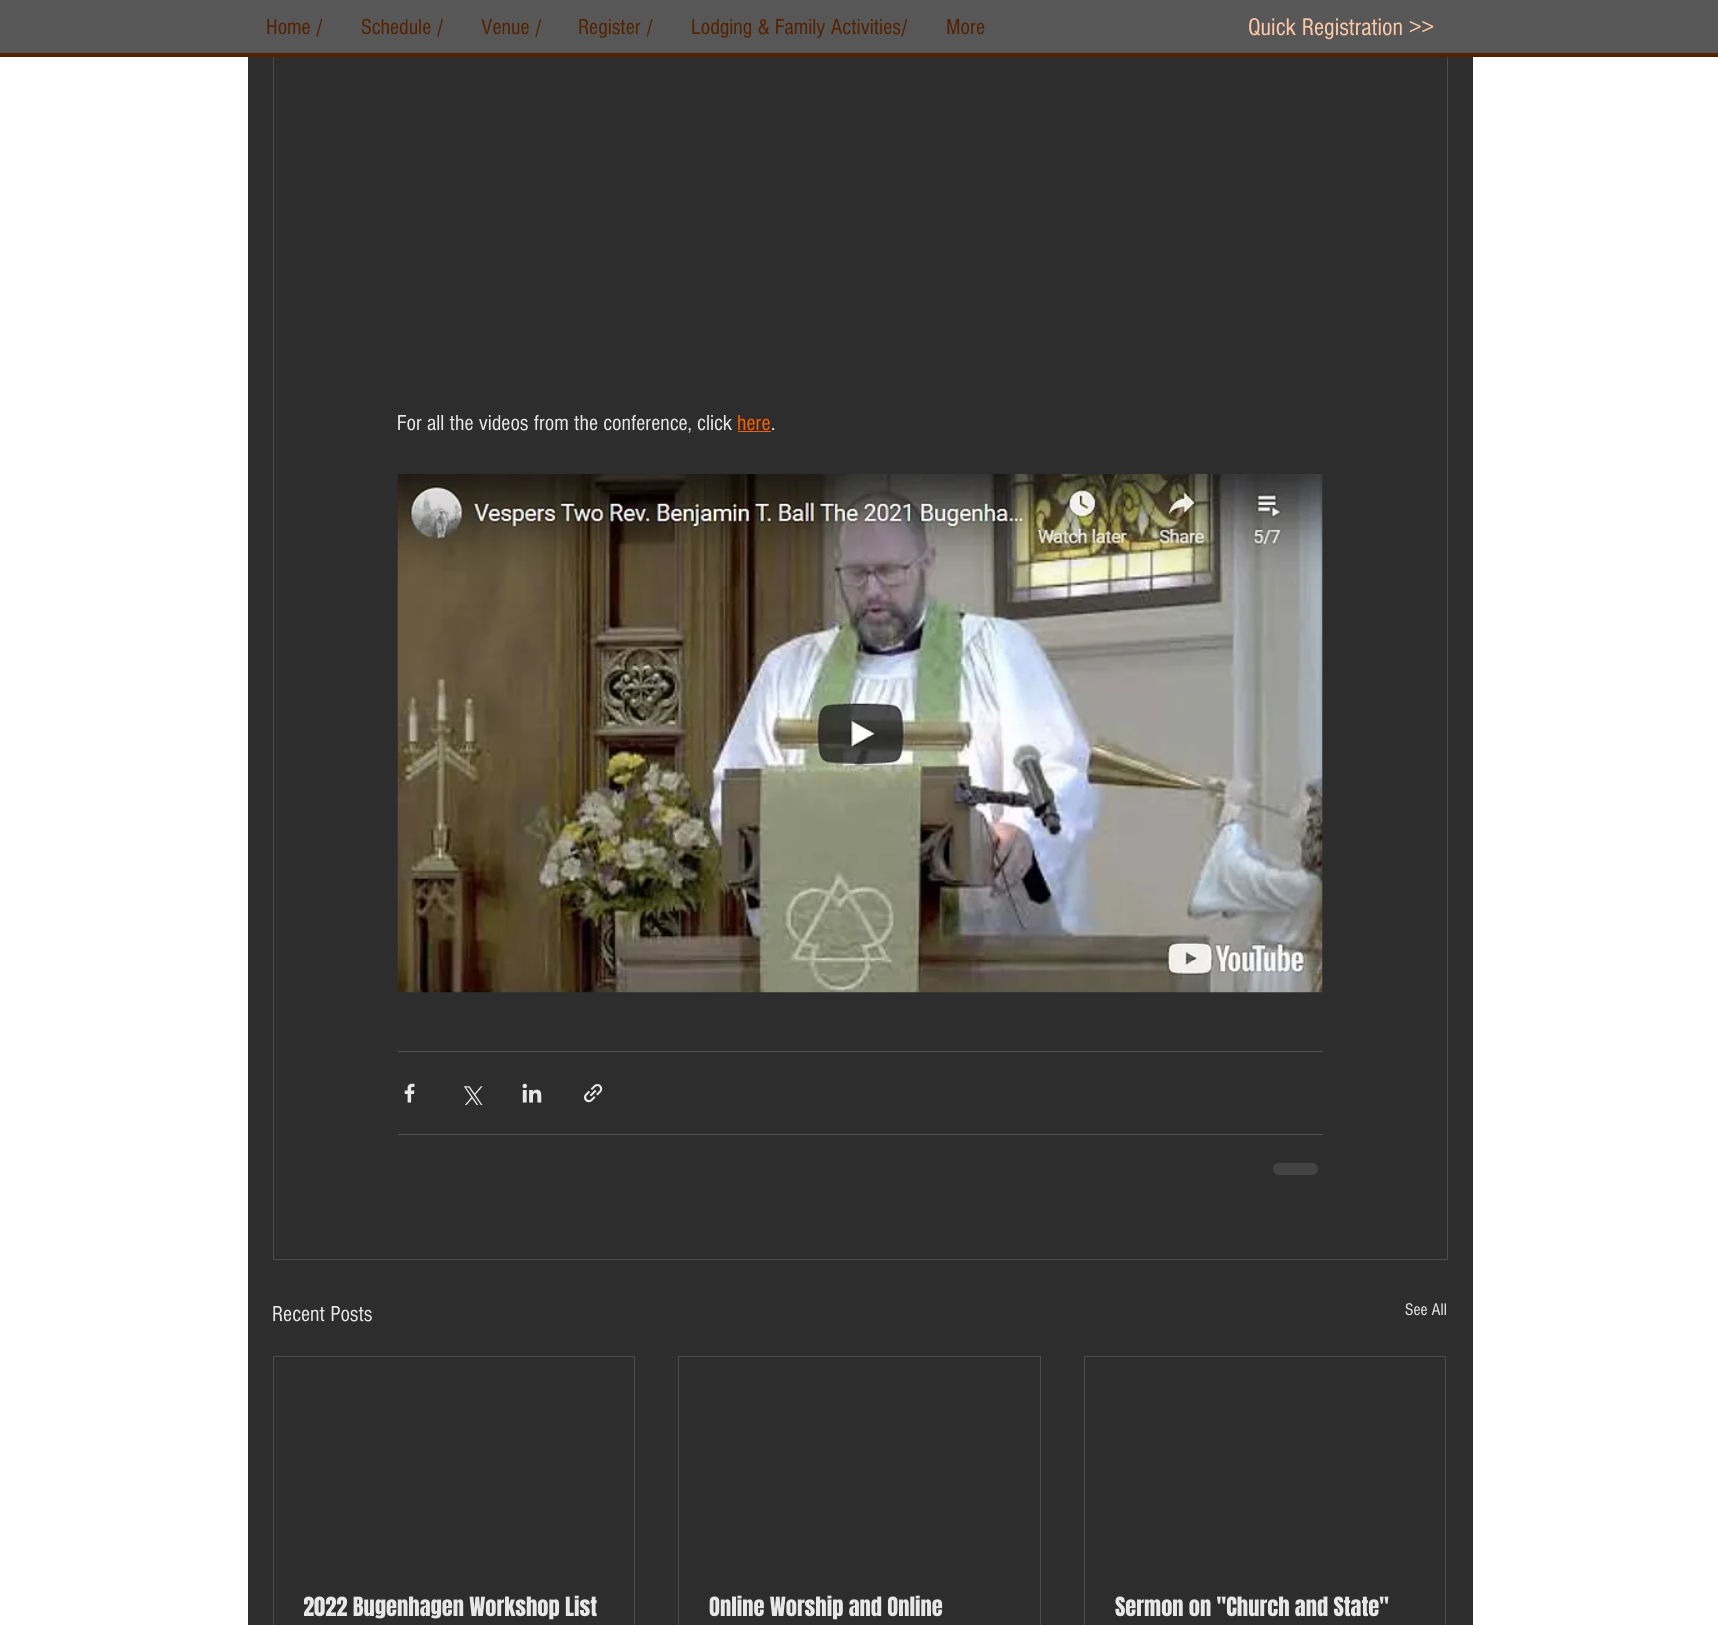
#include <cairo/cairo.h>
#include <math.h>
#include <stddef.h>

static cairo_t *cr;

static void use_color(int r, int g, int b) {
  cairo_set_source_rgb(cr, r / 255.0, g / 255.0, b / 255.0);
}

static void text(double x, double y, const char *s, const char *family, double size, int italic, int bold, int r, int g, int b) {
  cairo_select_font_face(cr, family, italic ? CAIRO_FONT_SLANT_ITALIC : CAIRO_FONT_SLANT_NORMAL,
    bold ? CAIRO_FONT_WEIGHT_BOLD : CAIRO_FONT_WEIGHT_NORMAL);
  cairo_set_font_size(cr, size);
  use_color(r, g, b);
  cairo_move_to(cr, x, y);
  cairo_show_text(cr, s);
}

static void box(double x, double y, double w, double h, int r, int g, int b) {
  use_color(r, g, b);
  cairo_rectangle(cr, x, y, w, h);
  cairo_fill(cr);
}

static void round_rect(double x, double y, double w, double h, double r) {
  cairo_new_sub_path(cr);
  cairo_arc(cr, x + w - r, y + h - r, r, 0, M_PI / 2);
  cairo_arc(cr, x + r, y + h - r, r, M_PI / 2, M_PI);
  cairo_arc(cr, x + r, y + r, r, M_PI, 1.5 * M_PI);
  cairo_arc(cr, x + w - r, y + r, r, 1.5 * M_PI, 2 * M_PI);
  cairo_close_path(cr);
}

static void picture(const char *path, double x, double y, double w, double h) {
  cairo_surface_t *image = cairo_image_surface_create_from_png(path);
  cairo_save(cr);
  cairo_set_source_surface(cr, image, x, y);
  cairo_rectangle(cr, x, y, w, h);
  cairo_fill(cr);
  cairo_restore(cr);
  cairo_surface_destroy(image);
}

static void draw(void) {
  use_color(255, 255, 255);
  cairo_paint(cr);
  box(248, 57, 1225, 1568, 45, 45, 45);
  cairo_rectangle(cr, 273.5, -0.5, 1174, 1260);
  use_color(77, 77, 77);
  cairo_set_line_width(cr, 1);
  cairo_stroke(cr);
  box(0, 0, 1718, 53, 87, 87, 87);
  box(0, 53, 1718, 4, 84, 32, 0);
  box(738, 431, 33, 1, 252, 96, 0);
  picture("img_01.png", 397, 474, 926, 519);
  box(398, 1051, 925, 1, 82, 82, 82);
  picture("img_02.png", 404, 1083, 11, 20);
  picture("img_03.png", 463, 1086, 20, 19);
  picture("img_04.png", 522, 1083, 20, 20);
  picture("img_05.png", 584, 1084, 19, 19);
  box(398, 1134, 925, 1, 82, 82, 82);
  use_color(67, 67, 67);
  round_rect(1273, 1163, 45, 12, 6);
  cairo_fill(cr);
  cairo_rectangle(cr, 273.5, 1356.5, 361, 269);
  use_color(77, 77, 77);
  cairo_stroke(cr);
  cairo_rectangle(cr, 678.5, 1356.5, 362, 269);
  cairo_stroke(cr);
  cairo_rectangle(cr, 1084.5, 1356.5, 361, 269);
  cairo_stroke(cr);
  text(266, 34, "Home /", "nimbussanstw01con", 22.5, 0, 0, 84, 32, 0);
  text(361, 34, "Schedule /", "nimbussanstw01con", 22.5, 0, 0, 84, 32, 0);
  text(481, 34, "Venue /", "nimbussanstw01con", 22.5, 0, 0, 84, 32, 0);
  text(578, 34, "Register /", "nimbussanstw01con", 22.5, 0, 0, 84, 32, 0);
  text(691, 34, "Lodging & Family Activities/", "nimbussanstw01con", 22.5, 0, 0, 84, 32, 0);
  text(946, 34, "More", "nimbussanstw01con", 22.5, 0, 0, 84, 32, 0);
  text(1248, 35, "Quick Registration >>", "nimbussanstw01con", 25, 0, 0, 254, 201, 169);
  text(397, 430, "For all the videos from the conference, click", "nimbussanstw01con", 22.5, 0, 0, 232, 232, 232);
  text(737, 430, "here", "nimbussanstw01con", 22.5, 0, 0, 252, 96, 0);
  text(771, 430, ".", "nimbussanstw01con", 22.5, 0, 0, 232, 232, 232);
  text(272, 1321, "Recent Posts", "nimbussanstw01con", 22.5, 0, 0, 232, 232, 232);
  text(1405, 1315, "See All", "nimbussanstw01con", 17.5, 0, 0, 232, 232, 232);
  cairo_save(cr);
  cairo_rectangle(cr, 304, 1591, 300, 33);
  cairo_clip(cr);
  text(303, 1616, "2022 Bugenhagen Workshop List", "Anton", 22.5, 0, 0, 232, 232, 232);
  cairo_restore(cr);
  text(709, 1616, "Online Worship and Online", "Anton", 22.5, 0, 0, 232, 232, 232);
  text(1115, 1616, "Sermon on \"Church and State\"", "Anton", 22.5, 0, 0, 232, 232, 232);
}

int main(void) {
  cairo_surface_t *surface = cairo_image_surface_create(CAIRO_FORMAT_RGB24, 1718, 1625);
  cr = cairo_create(surface);
  cairo_font_options_t *options = cairo_font_options_create();
  cairo_font_options_set_hint_metrics(options, CAIRO_HINT_METRICS_OFF);
  cairo_font_options_set_hint_style(options, CAIRO_HINT_STYLE_NONE);
  cairo_set_font_options(cr, options);
  cairo_set_miter_limit(cr, 4);
  draw();
  cairo_surface_write_to_png(surface, "out.png");
  cairo_font_options_destroy(options);
  cairo_destroy(cr);
  cairo_surface_destroy(surface);
  return 0;
}
